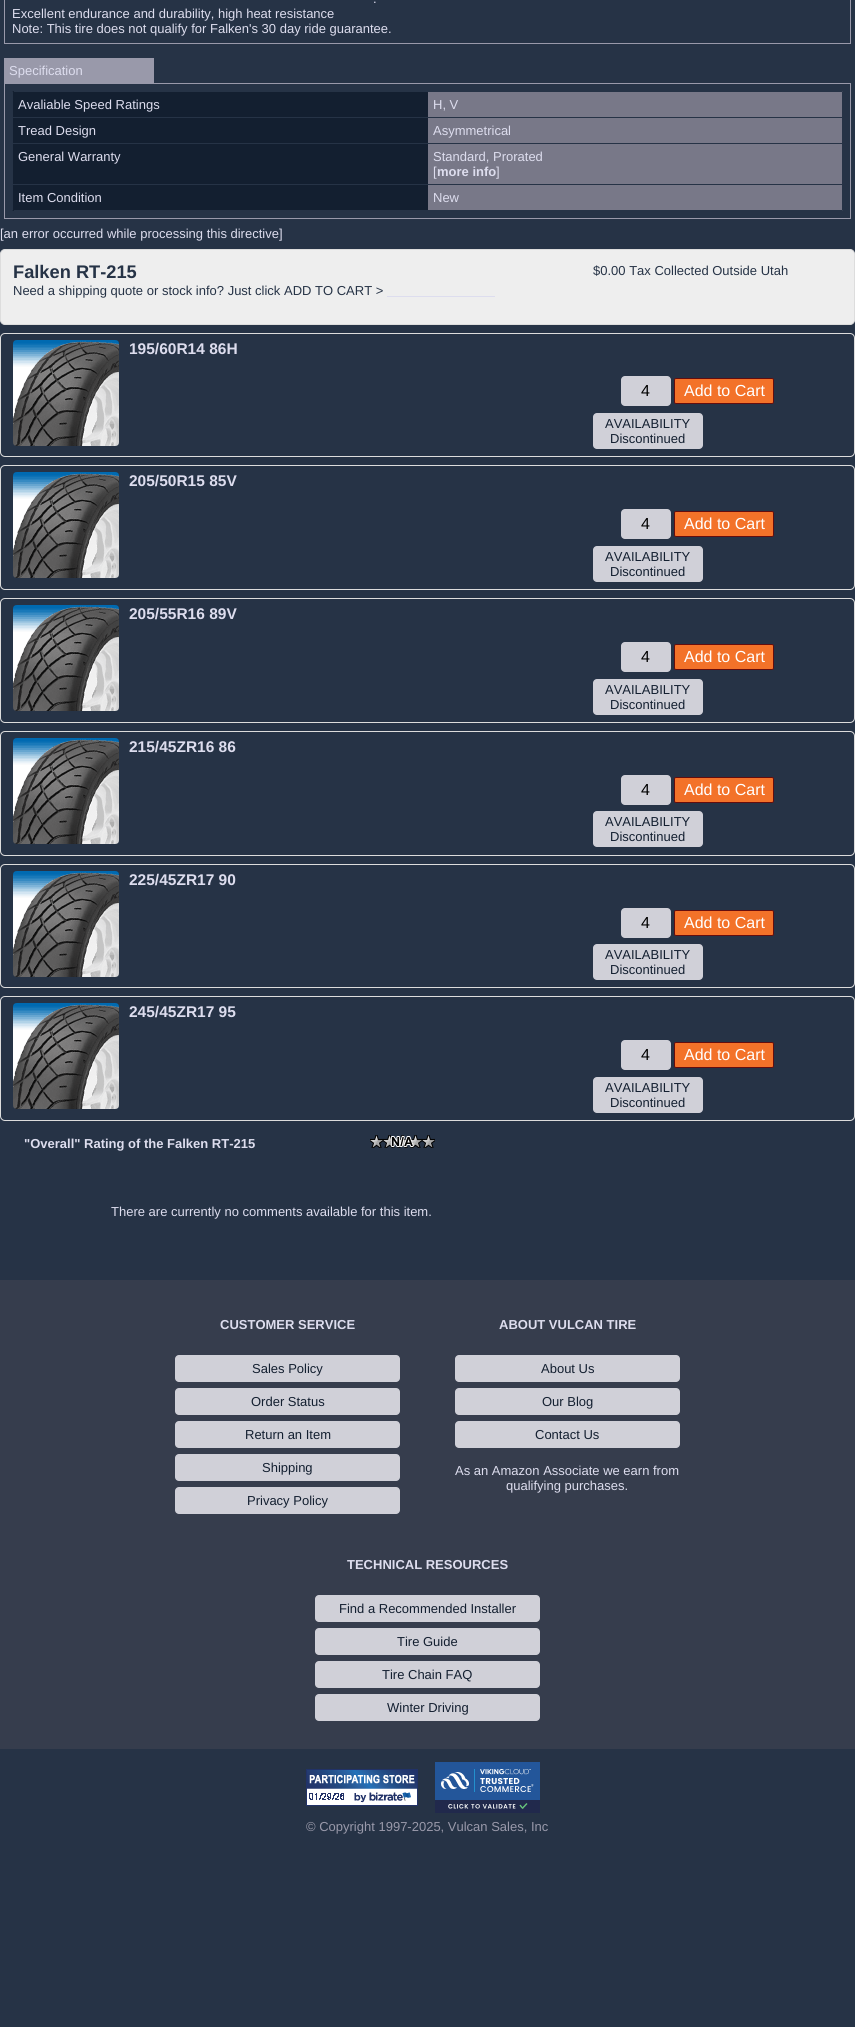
#include <cairo/cairo.h>
#include <math.h>
#include <stddef.h>

static cairo_t *cr;

static void use_color(int r, int g, int b) {
  cairo_set_source_rgb(cr, r / 255.0, g / 255.0, b / 255.0);
}

static void text(double x, double y, const char *s, const char *family, double size, int italic, int bold, int r, int g, int b) {
  cairo_select_font_face(cr, family, italic ? CAIRO_FONT_SLANT_ITALIC : CAIRO_FONT_SLANT_NORMAL,
    bold ? CAIRO_FONT_WEIGHT_BOLD : CAIRO_FONT_WEIGHT_NORMAL);
  cairo_set_font_size(cr, size);
  use_color(r, g, b);
  cairo_move_to(cr, x, y);
  cairo_show_text(cr, s);
}

static void box(double x, double y, double w, double h, int r, int g, int b) {
  use_color(r, g, b);
  cairo_rectangle(cr, x, y, w, h);
  cairo_fill(cr);
}

static void round_rect(double x, double y, double w, double h, double r) {
  cairo_new_sub_path(cr);
  cairo_arc(cr, x + w - r, y + h - r, r, 0, M_PI / 2);
  cairo_arc(cr, x + r, y + h - r, r, M_PI / 2, M_PI);
  cairo_arc(cr, x + r, y + r, r, M_PI, 1.5 * M_PI);
  cairo_arc(cr, x + w - r, y + r, r, 1.5 * M_PI, 2 * M_PI);
  cairo_close_path(cr);
}

static void picture(const char *path, double x, double y, double w, double h) {
  cairo_surface_t *image = cairo_image_surface_create_from_png(path);
  cairo_save(cr);
  cairo_set_source_surface(cr, image, x, y);
  cairo_rectangle(cr, x, y, w, h);
  cairo_fill(cr);
  cairo_restore(cr);
  cairo_surface_destroy(image);
}

static void draw(void) {
  use_color(38, 51, 70);
  cairo_paint(cr);
  cairo_rectangle(cr, 4.5, -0.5, 846, 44);
  use_color(153, 153, 170);
  cairo_set_line_width(cr, 1);
  cairo_stroke(cr);
  box(4, 58, 150, 25, 153, 153, 170);
  cairo_rectangle(cr, 4.5, 83.5, 846, 135);
  cairo_stroke(cr);
  use_color(19, 31, 48);
  round_rect(12, 91, 831, 120, 2);
  cairo_fill(cr);
  box(12, 92, 1, 118, 38, 51, 70);
  box(14, 91, 414, 1, 38, 51, 70);
  use_color(120, 120, 136);
  cairo_new_path(cr);
  cairo_move_to(cr, 428, 91);
  cairo_line_to(cr, 841, 91);
  cairo_curve_to(cr, 842, 91, 843, 92, 843, 93);
  cairo_line_to(cr, 843, 117);
  cairo_line_to(cr, 428, 117);
  cairo_close_path(cr);
  cairo_fill(cr);
  box(428, 91, 414, 1, 38, 51, 70);
  box(842, 92, 1, 25, 38, 51, 70);
  box(13, 117, 830, 1, 38, 51, 70);
  box(428, 118, 414, 25, 120, 120, 136);
  box(842, 117, 1, 26, 38, 51, 70);
  box(13, 143, 830, 1, 38, 51, 70);
  box(428, 144, 414, 40, 120, 120, 136);
  box(842, 143, 1, 41, 38, 51, 70);
  box(13, 184, 415, 1, 38, 51, 70);
  box(14, 210, 414, 1, 38, 51, 70);
  use_color(120, 120, 136);
  cairo_new_path(cr);
  cairo_move_to(cr, 428, 184);
  cairo_line_to(cr, 843, 184);
  cairo_line_to(cr, 843, 209);
  cairo_curve_to(cr, 843, 210, 842, 211, 841, 211);
  cairo_line_to(cr, 428, 211);
  cairo_close_path(cr);
  cairo_fill(cr);
  box(428, 184, 415, 1, 38, 51, 70);
  box(842, 184, 1, 26, 38, 51, 70);
  box(428, 210, 414, 1, 38, 51, 70);
  use_color(238, 238, 238);
  round_rect(0.5, 249.5, 854, 75, 4.5);
  cairo_fill_preserve(cr);
  use_color(221, 221, 221);
  cairo_stroke(cr);
  box(387, 296, 108, 1, 221, 221, 238);
  round_rect(0.5, 333.5, 854, 123, 4.5);
  use_color(221, 221, 221);
  cairo_stroke(cr);
  picture("img_01.png", 13, 340, 106, 106);
  use_color(208, 208, 216);
  round_rect(621, 376, 50, 30, 4);
  cairo_fill(cr);
  use_color(243, 114, 41);
  round_rect(674.5, 378.5, 99, 25, 1.5);
  cairo_fill_preserve(cr);
  use_color(100, 13, 13);
  cairo_stroke(cr);
  use_color(208, 208, 216);
  round_rect(593, 413, 110, 36, 4);
  cairo_fill(cr);
  round_rect(0.5, 465.5, 854, 124, 4.5);
  use_color(221, 221, 221);
  cairo_stroke(cr);
  picture("img_01.png", 13, 472, 106, 106);
  use_color(208, 208, 216);
  round_rect(621, 509, 50, 30, 4);
  cairo_fill(cr);
  use_color(243, 114, 41);
  round_rect(674.5, 511.5, 99, 25, 1.5);
  cairo_fill_preserve(cr);
  use_color(100, 13, 13);
  cairo_stroke(cr);
  use_color(208, 208, 216);
  round_rect(593, 546, 110, 36, 4);
  cairo_fill(cr);
  round_rect(0.5, 598.5, 854, 124, 4.5);
  use_color(221, 221, 221);
  cairo_stroke(cr);
  picture("img_01.png", 13, 605, 106, 106);
  use_color(208, 208, 216);
  round_rect(621, 642, 50, 30, 4);
  cairo_fill(cr);
  use_color(243, 114, 41);
  round_rect(674.5, 644.5, 99, 25, 1.5);
  cairo_fill_preserve(cr);
  use_color(100, 13, 13);
  cairo_stroke(cr);
  use_color(208, 208, 216);
  round_rect(593, 679, 110, 36, 4);
  cairo_fill(cr);
  round_rect(0.5, 731.5, 854, 124, 4.5);
  use_color(221, 221, 221);
  cairo_stroke(cr);
  picture("img_01.png", 13, 738, 106, 106);
  use_color(208, 208, 216);
  round_rect(621, 775, 50, 30, 4);
  cairo_fill(cr);
  use_color(243, 114, 41);
  round_rect(674.5, 777.5, 99, 25, 1.5);
  cairo_fill_preserve(cr);
  use_color(100, 13, 13);
  cairo_stroke(cr);
  use_color(208, 208, 216);
  round_rect(593, 811, 110, 36, 4);
  cairo_fill(cr);
  round_rect(0.5, 864.5, 854, 123, 4.5);
  use_color(221, 221, 221);
  cairo_stroke(cr);
  picture("img_01.png", 13, 871, 106, 106);
  use_color(208, 208, 216);
  round_rect(621, 908, 50, 30, 4);
  cairo_fill(cr);
  use_color(243, 114, 41);
  round_rect(674.5, 910.5, 99, 25, 1.5);
  cairo_fill_preserve(cr);
  use_color(100, 13, 13);
  cairo_stroke(cr);
  use_color(208, 208, 216);
  round_rect(593, 944, 110, 36, 4);
  cairo_fill(cr);
  round_rect(0.5, 996.5, 854, 124, 4.5);
  use_color(221, 221, 221);
  cairo_stroke(cr);
  picture("img_01.png", 13, 1003, 106, 106);
  use_color(208, 208, 216);
  round_rect(621, 1040, 50, 30, 4);
  cairo_fill(cr);
  use_color(243, 114, 41);
  round_rect(674.5, 1042.5, 99, 25, 1.5);
  cairo_fill_preserve(cr);
  use_color(100, 13, 13);
  cairo_stroke(cr);
  use_color(208, 208, 216);
  round_rect(593, 1077, 110, 36, 4);
  cairo_fill(cr);
  picture("img_02.png", 370, 1135, 65, 13);
  box(0, 1280, 855, 469, 54, 61, 77);
  use_color(208, 208, 216);
  round_rect(175, 1355, 225, 27, 4);
  cairo_fill(cr);
  round_rect(175, 1388, 225, 27, 4);
  cairo_fill(cr);
  round_rect(175, 1421, 225, 27, 4);
  cairo_fill(cr);
  round_rect(175, 1454, 225, 27, 4);
  cairo_fill(cr);
  round_rect(175, 1487, 225, 27, 4);
  cairo_fill(cr);
  round_rect(455, 1355, 225, 27, 4);
  cairo_fill(cr);
  round_rect(455, 1388, 225, 27, 4);
  cairo_fill(cr);
  round_rect(455, 1421, 225, 27, 4);
  cairo_fill(cr);
  round_rect(315, 1595, 225, 27, 4);
  cairo_fill(cr);
  round_rect(315, 1628, 225, 27, 4);
  cairo_fill(cr);
  round_rect(315, 1661, 225, 27, 4);
  cairo_fill(cr);
  round_rect(315, 1694, 225, 27, 4);
  cairo_fill(cr);
  picture("img_03.png", 306, 1769, 112, 37);
  picture("img_04.png", 435, 1762, 105, 51);
  text(373, 3, ".", "Liberation Sans", 13, 0, 0, 221, 221, 238);
  text(12, 18, "Excellent endurance and durability, high heat resistance", "Liberation Sans", 13, 0, 0, 221, 221, 238);
  text(12, 33, "Note: This tire does not qualify for Falken's 30 day ride guarantee.", "Liberation Sans", 13, 0, 0, 221, 221, 238);
  text(9, 75, "Specification", "Liberation Sans", 13, 0, 0, 221, 221, 238);
  text(18, 109, "Avaliable Speed Ratings", "Liberation Sans", 13, 0, 0, 221, 221, 238);
  text(433, 109, "H, V", "Liberation Sans", 13, 0, 0, 221, 221, 238);
  text(18, 135, "Tread Design", "Liberation Sans", 13, 0, 0, 221, 221, 238);
  text(433, 135, "Asymmetrical", "Liberation Sans", 13, 0, 0, 221, 221, 238);
  text(18, 161, "General Warranty", "Liberation Sans", 13, 0, 0, 221, 221, 238);
  text(433, 161, "Standard, Prorated", "Liberation Sans", 13, 0, 0, 221, 221, 238);
  text(433, 176, "[", "Liberation Sans", 13, 0, 0, 221, 221, 238);
  text(437, 176, "more info", "Liberation Sans", 13, 0, 1, 221, 221, 238);
  text(496, 176, "]", "Liberation Sans", 13, 0, 0, 221, 221, 238);
  text(18, 202, "Item Condition", "Liberation Sans", 13, 0, 0, 221, 221, 238);
  text(433, 202, "New", "Liberation Sans", 13, 0, 0, 221, 221, 238);
  text(0, 238, "[an error occurred while processing this directive]", "Liberation Sans", 13, 0, 0, 221, 221, 238);
  text(13, 278, "Falken RT-215", "Liberation Sans", 18.25, 0, 1, 38, 51, 70);
  text(13, 295, "Need a shipping quote or stock info? Just click ADD TO CART >", "Liberation Sans", 13, 0, 0, 38, 51, 70);
  text(593, 275, "$0.00 Tax Collected Outside Utah", "Liberation Sans", 13, 0, 0, 38, 51, 70);
  text(129, 354, "195/60R14 86H", "Liberation Sans", 15.5, 0, 1, 221, 221, 238);
  text(641, 396, "4", "Liberation Sans", 16, 0, 0, 0, 0, 0);
  text(684, 396, "Add to Cart", "Liberation Sans", 16, 0, 0, 255, 255, 255);
  text(605, 428, "AVAILABILITY", "Liberation Sans", 13, 0, 0, 19, 31, 48);
  text(610, 443, "Discontinued", "Liberation Sans", 13, 0, 0, 19, 31, 48);
  text(129, 486, "205/50R15 85V", "Liberation Sans", 15.5, 0, 1, 221, 221, 238);
  text(641, 529, "4", "Liberation Sans", 16, 0, 0, 0, 0, 0);
  text(684, 529, "Add to Cart", "Liberation Sans", 16, 0, 0, 255, 255, 255);
  text(605, 561, "AVAILABILITY", "Liberation Sans", 13, 0, 0, 19, 31, 48);
  text(610, 576, "Discontinued", "Liberation Sans", 13, 0, 0, 19, 31, 48);
  text(129, 619, "205/55R16 89V", "Liberation Sans", 15.5, 0, 1, 221, 221, 238);
  text(641, 662, "4", "Liberation Sans", 16, 0, 0, 0, 0, 0);
  text(684, 662, "Add to Cart", "Liberation Sans", 16, 0, 0, 255, 255, 255);
  text(605, 694, "AVAILABILITY", "Liberation Sans", 13, 0, 0, 19, 31, 48);
  text(610, 709, "Discontinued", "Liberation Sans", 13, 0, 0, 19, 31, 48);
  text(129, 752, "215/45ZR16 86", "Liberation Sans", 15.5, 0, 1, 221, 221, 238);
  text(641, 795, "4", "Liberation Sans", 16, 0, 0, 0, 0, 0);
  text(684, 795, "Add to Cart", "Liberation Sans", 16, 0, 0, 255, 255, 255);
  text(605, 826, "AVAILABILITY", "Liberation Sans", 13, 0, 0, 19, 31, 48);
  text(610, 841, "Discontinued", "Liberation Sans", 13, 0, 0, 19, 31, 48);
  text(129, 885, "225/45ZR17 90", "Liberation Sans", 15.5, 0, 1, 221, 221, 238);
  text(641, 928, "4", "Liberation Sans", 16, 0, 0, 0, 0, 0);
  text(684, 928, "Add to Cart", "Liberation Sans", 16, 0, 0, 255, 255, 255);
  text(605, 959, "AVAILABILITY", "Liberation Sans", 13, 0, 0, 19, 31, 48);
  text(610, 974, "Discontinued", "Liberation Sans", 13, 0, 0, 19, 31, 48);
  text(129, 1017, "245/45ZR17 95", "Liberation Sans", 15.5, 0, 1, 221, 221, 238);
  text(641, 1060, "4", "Liberation Sans", 16, 0, 0, 0, 0, 0);
  text(684, 1060, "Add to Cart", "Liberation Sans", 16, 0, 0, 255, 255, 255);
  text(605, 1092, "AVAILABILITY", "Liberation Sans", 13, 0, 0, 19, 31, 48);
  text(610, 1107, "Discontinued", "Liberation Sans", 13, 0, 0, 19, 31, 48);
  text(24, 1148, "\"Overall\" Rating of the Falken RT-215", "Liberation Sans", 13, 0, 1, 221, 221, 238);
  text(111, 1216, "There are currently no comments available for this item.", "Liberation Sans", 13, 0, 0, 221, 221, 238);
  text(220, 1329, "CUSTOMER SERVICE", "Liberation Sans", 13, 0, 1, 221, 221, 238);
  text(252, 1373, "Sales Policy", "Liberation Sans", 13, 0, 0, 19, 31, 48);
  text(251, 1406, "Order Status", "Liberation Sans", 13, 0, 0, 19, 31, 48);
  text(245, 1439, "Return an Item", "Liberation Sans", 13, 0, 0, 19, 31, 48);
  text(262, 1472, "Shipping", "Liberation Sans", 13, 0, 0, 19, 31, 48);
  text(247, 1505, "Privacy Policy", "Liberation Sans", 13, 0, 0, 19, 31, 48);
  text(499, 1329, "ABOUT VULCAN TIRE", "Liberation Sans", 13, 0, 1, 221, 221, 238);
  text(541, 1373, "About Us", "Liberation Sans", 13, 0, 0, 19, 31, 48);
  text(542, 1406, "Our Blog", "Liberation Sans", 13, 0, 0, 19, 31, 48);
  text(535, 1439, "Contact Us", "Liberation Sans", 13, 0, 0, 19, 31, 48);
  text(455, 1475, "As an Amazon Associate we earn from", "Liberation Sans", 13, 0, 0, 221, 221, 238);
  text(506, 1490, "qualifying purchases.", "Liberation Sans", 13, 0, 0, 221, 221, 238);
  text(347, 1569, "TECHNICAL RESOURCES", "Liberation Sans", 13, 0, 1, 221, 221, 238);
  text(339, 1613, "Find a Recommended Installer", "Liberation Sans", 13, 0, 0, 19, 31, 48);
  text(397, 1646, "Tire Guide", "Liberation Sans", 13, 0, 0, 19, 31, 48);
  text(382, 1679, "Tire Chain FAQ", "Liberation Sans", 13, 0, 0, 19, 31, 48);
  text(387, 1712, "Winter Driving", "Liberation Sans", 13, 0, 0, 19, 31, 48);
  text(306, 1831, "© Copyright 1997-2025, Vulcan Sales, Inc", "Liberation Sans", 13, 0, 0, 153, 153, 170);
}

int main(void) {
  cairo_surface_t *surface = cairo_image_surface_create(CAIRO_FORMAT_RGB24, 855, 2027);
  cr = cairo_create(surface);
  cairo_font_options_t *options = cairo_font_options_create();
  cairo_font_options_set_hint_metrics(options, CAIRO_HINT_METRICS_OFF);
  cairo_font_options_set_hint_style(options, CAIRO_HINT_STYLE_NONE);
  cairo_set_font_options(cr, options);
  cairo_set_miter_limit(cr, 4);
  draw();
  cairo_surface_write_to_png(surface, "out.png");
  cairo_font_options_destroy(options);
  cairo_destroy(cr);
  cairo_surface_destroy(surface);
  return 0;
}
